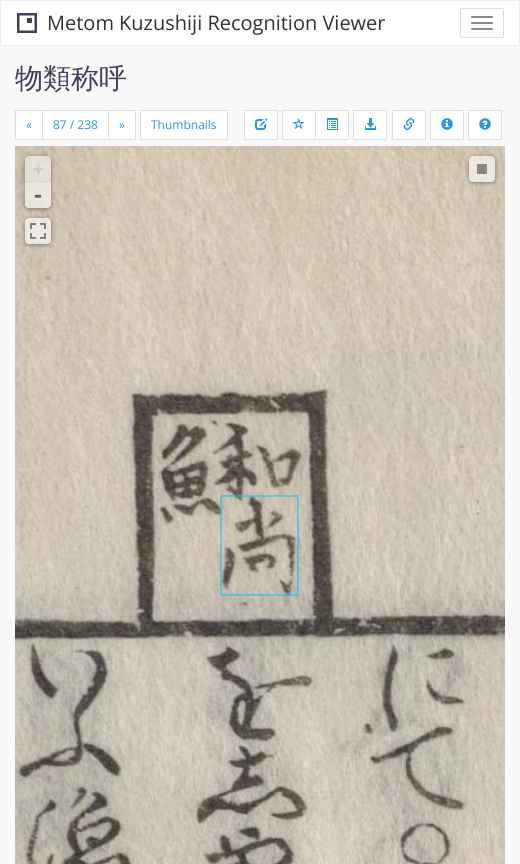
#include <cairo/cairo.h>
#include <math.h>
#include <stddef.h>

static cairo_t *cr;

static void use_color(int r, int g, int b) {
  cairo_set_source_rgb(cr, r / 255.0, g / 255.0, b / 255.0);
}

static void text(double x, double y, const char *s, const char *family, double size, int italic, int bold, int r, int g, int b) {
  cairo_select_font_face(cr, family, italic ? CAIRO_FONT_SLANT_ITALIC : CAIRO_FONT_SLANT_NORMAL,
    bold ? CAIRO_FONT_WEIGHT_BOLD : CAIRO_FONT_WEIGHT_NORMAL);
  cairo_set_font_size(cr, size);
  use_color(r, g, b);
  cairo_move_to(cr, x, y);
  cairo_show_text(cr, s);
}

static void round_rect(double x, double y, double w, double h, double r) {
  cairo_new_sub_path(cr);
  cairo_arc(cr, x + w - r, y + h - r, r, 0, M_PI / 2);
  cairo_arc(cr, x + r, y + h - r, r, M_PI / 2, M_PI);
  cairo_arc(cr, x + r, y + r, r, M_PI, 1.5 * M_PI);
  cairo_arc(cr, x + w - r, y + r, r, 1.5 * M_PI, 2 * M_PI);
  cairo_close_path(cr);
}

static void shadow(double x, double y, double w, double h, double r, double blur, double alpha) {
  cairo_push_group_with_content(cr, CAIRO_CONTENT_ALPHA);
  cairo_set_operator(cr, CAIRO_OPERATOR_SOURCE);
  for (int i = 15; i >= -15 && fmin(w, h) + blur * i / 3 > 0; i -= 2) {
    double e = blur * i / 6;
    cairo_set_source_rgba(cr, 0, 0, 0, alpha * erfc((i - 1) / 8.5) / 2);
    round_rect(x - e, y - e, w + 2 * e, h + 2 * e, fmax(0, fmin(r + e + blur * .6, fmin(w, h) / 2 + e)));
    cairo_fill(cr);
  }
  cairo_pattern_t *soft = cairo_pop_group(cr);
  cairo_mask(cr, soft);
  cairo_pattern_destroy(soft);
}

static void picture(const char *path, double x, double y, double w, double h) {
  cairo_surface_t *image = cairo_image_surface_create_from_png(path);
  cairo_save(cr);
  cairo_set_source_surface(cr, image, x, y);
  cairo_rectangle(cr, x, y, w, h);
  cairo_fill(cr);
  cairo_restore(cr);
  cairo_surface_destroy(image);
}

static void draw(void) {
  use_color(249, 249, 249);
  cairo_paint(cr);
  use_color(255, 255, 255);
  cairo_rectangle(cr, 0.5, 0.5, 519, 45);
  cairo_fill_preserve(cr);
  use_color(238, 238, 238);
  cairo_set_line_width(cr, 1);
  cairo_stroke(cr);
  picture("img_01.png", 17, 13, 20, 20);
  round_rect(460.5, 8.5, 43, 29, 1.5);
  use_color(221, 221, 221);
  cairo_stroke(cr);
  use_color(136, 136, 136);
  round_rect(471, 16, 22, 2, 1);
  cairo_fill(cr);
  round_rect(471, 22, 22, 2, 1);
  cairo_fill(cr);
  round_rect(471, 28, 22, 2, 1);
  cairo_fill(cr);
  use_color(255, 255, 255);
  cairo_new_path(cr);
  cairo_move_to(cr, 16, 110.5);
  cairo_line_to(cr, 42.5, 110.5);
  cairo_line_to(cr, 42.5, 139.5);
  cairo_line_to(cr, 16, 139.5);
  cairo_curve_to(cr, 15.5, 139.5, 15.5, 139.5, 15.5, 139);
  cairo_line_to(cr, 15.5, 111);
  cairo_curve_to(cr, 15.5, 110.5, 15.5, 110.5, 16, 110.5);
  cairo_close_path(cr);
  cairo_fill_preserve(cr);
  use_color(221, 221, 221);
  cairo_stroke(cr);
  use_color(255, 255, 255);
  cairo_rectangle(cr, 42.5, 110.5, 66, 29);
  cairo_fill_preserve(cr);
  use_color(221, 221, 221);
  cairo_stroke(cr);
  use_color(255, 255, 255);
  cairo_new_path(cr);
  cairo_move_to(cr, 108.5, 110.5);
  cairo_line_to(cr, 135, 110.5);
  cairo_curve_to(cr, 135.5, 110.5, 135.5, 110.5, 135.5, 111);
  cairo_line_to(cr, 135.5, 139);
  cairo_curve_to(cr, 135.5, 139.5, 135.5, 139.5, 135, 139.5);
  cairo_line_to(cr, 108.5, 139.5);
  cairo_close_path(cr);
  cairo_fill_preserve(cr);
  use_color(221, 221, 221);
  cairo_stroke(cr);
  use_color(255, 255, 255);
  round_rect(140.5, 110.5, 87, 29, 0.5);
  cairo_fill_preserve(cr);
  use_color(221, 221, 221);
  cairo_stroke(cr);
  use_color(255, 255, 255);
  round_rect(244.5, 110.5, 33, 29, 0.5);
  cairo_fill_preserve(cr);
  use_color(221, 221, 221);
  cairo_stroke(cr);
  picture("img_02.png", 255, 118, 13, 12);
  use_color(255, 255, 255);
  cairo_new_path(cr);
  cairo_move_to(cr, 283, 110.5);
  cairo_line_to(cr, 315.5, 110.5);
  cairo_line_to(cr, 315.5, 139.5);
  cairo_line_to(cr, 283, 139.5);
  cairo_curve_to(cr, 282.5, 139.5, 282.5, 139.5, 282.5, 139);
  cairo_line_to(cr, 282.5, 111);
  cairo_curve_to(cr, 282.5, 110.5, 282.5, 110.5, 283, 110.5);
  cairo_close_path(cr);
  cairo_fill_preserve(cr);
  use_color(221, 221, 221);
  cairo_stroke(cr);
  picture("img_03.png", 292, 118, 13, 11);
  use_color(255, 255, 255);
  cairo_new_path(cr);
  cairo_move_to(cr, 315.5, 110.5);
  cairo_line_to(cr, 348, 110.5);
  cairo_curve_to(cr, 348.5, 110.5, 348.5, 110.5, 348.5, 111);
  cairo_line_to(cr, 348.5, 139);
  cairo_curve_to(cr, 348.5, 139.5, 348.5, 139.5, 348, 139.5);
  cairo_line_to(cr, 315.5, 139.5);
  cairo_close_path(cr);
  cairo_fill_preserve(cr);
  use_color(221, 221, 221);
  cairo_stroke(cr);
  picture("img_04.png", 327, 118, 11, 12);
  use_color(255, 255, 255);
  round_rect(353.5, 110.5, 33, 29, 0.5);
  cairo_fill_preserve(cr);
  use_color(221, 221, 221);
  cairo_stroke(cr);
  picture("img_05.png", 365, 118, 11, 12);
  use_color(255, 255, 255);
  round_rect(392.5, 110.5, 33, 29, 0.5);
  cairo_fill_preserve(cr);
  use_color(221, 221, 221);
  cairo_stroke(cr);
  picture("img_06.png", 403, 117, 12, 14);
  use_color(255, 255, 255);
  round_rect(430.5, 110.5, 33, 29, 0.5);
  cairo_fill_preserve(cr);
  use_color(221, 221, 221);
  cairo_stroke(cr);
  picture("img_07.png", 441, 118, 12, 12);
  use_color(255, 255, 255);
  round_rect(468.5, 110.5, 33, 29, 0.5);
  cairo_fill_preserve(cr);
  use_color(221, 221, 221);
  cairo_stroke(cr);
  picture("img_08.png", 479, 118, 12, 12);
  picture("img_09.png", 15, 146, 362, 718);
  picture("img_10.png", 377, 146, 128, 718);
  cairo_new_path(cr);
  cairo_move_to(cr, 221, 595);
  cairo_line_to(cr, 221, 496);
  cairo_line_to(cr, 298, 496);
  cairo_line_to(cr, 298, 595);
  cairo_close_path(cr);
  cairo_set_source_rgba(cr, 0, 0.749, 1, 0.5);
  cairo_set_line_width(cr, 2);
  cairo_set_line_cap(cr, CAIRO_LINE_CAP_ROUND);
  cairo_set_line_join(cr, CAIRO_LINE_JOIN_ROUND);
  cairo_stroke(cr);
  cairo_save(cr);
  cairo_set_fill_rule(cr, CAIRO_FILL_RULE_EVEN_ODD);
  cairo_new_path(cr);
  cairo_move_to(cr, 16, 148);
  cairo_line_to(cr, 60, 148);
  cairo_line_to(cr, 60, 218);
  cairo_line_to(cr, 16, 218);
  cairo_close_path(cr);
  cairo_move_to(cr, 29, 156);
  cairo_line_to(cr, 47, 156);
  cairo_curve_to(cr, 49, 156, 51, 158, 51, 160);
  cairo_line_to(cr, 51, 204);
  cairo_curve_to(cr, 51, 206, 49, 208, 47, 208);
  cairo_line_to(cr, 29, 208);
  cairo_curve_to(cr, 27, 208, 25, 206, 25, 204);
  cairo_line_to(cr, 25, 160);
  cairo_curve_to(cr, 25, 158, 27, 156, 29, 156);
  cairo_close_path(cr);
  cairo_clip(cr);
  use_color(0, 0, 0);
  shadow(25, 157, 26, 52, 4, 2.5, 0.39);
  cairo_restore(cr);
  cairo_set_source_rgba(cr, 0.957, 0.957, 0.957, 0.6);
  cairo_new_path(cr);
  cairo_move_to(cr, 29, 156);
  cairo_line_to(cr, 47, 156);
  cairo_curve_to(cr, 49, 156, 51, 158, 51, 160);
  cairo_line_to(cr, 51, 182);
  cairo_line_to(cr, 25, 182);
  cairo_line_to(cr, 25, 160);
  cairo_curve_to(cr, 25, 158, 27, 156, 29, 156);
  cairo_close_path(cr);
  cairo_fill(cr);
  cairo_set_source_rgba(cr, 0.8, 0.8, 0.8, 0.6);
  cairo_rectangle(cr, 25, 181, 26, 1);
  cairo_fill(cr);
  cairo_set_source_rgba(cr, 1, 1, 1, 0.6);
  cairo_new_path(cr);
  cairo_move_to(cr, 25, 182);
  cairo_line_to(cr, 51, 182);
  cairo_line_to(cr, 51, 204);
  cairo_curve_to(cr, 51, 206, 49, 208, 47, 208);
  cairo_line_to(cr, 29, 208);
  cairo_curve_to(cr, 27, 208, 25, 206, 25, 204);
  cairo_close_path(cr);
  cairo_fill(cr);
  cairo_save(cr);
  cairo_set_fill_rule(cr, CAIRO_FILL_RULE_EVEN_ODD);
  cairo_new_path(cr);
  cairo_move_to(cr, 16, 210);
  cairo_line_to(cr, 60, 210);
  cairo_line_to(cr, 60, 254);
  cairo_line_to(cr, 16, 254);
  cairo_close_path(cr);
  cairo_move_to(cr, 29, 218);
  cairo_line_to(cr, 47, 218);
  cairo_curve_to(cr, 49, 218, 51, 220, 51, 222);
  cairo_line_to(cr, 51, 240);
  cairo_curve_to(cr, 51, 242, 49, 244, 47, 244);
  cairo_line_to(cr, 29, 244);
  cairo_curve_to(cr, 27, 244, 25, 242, 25, 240);
  cairo_line_to(cr, 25, 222);
  cairo_curve_to(cr, 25, 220, 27, 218, 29, 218);
  cairo_close_path(cr);
  cairo_clip(cr);
  use_color(0, 0, 0);
  shadow(25, 219, 26, 26, 4, 2.5, 0.39);
  cairo_restore(cr);
  round_rect(25, 218, 26, 26, 4);
  cairo_fill(cr);
  picture("img_11.png", 30, 223, 16, 16);
  cairo_save(cr);
  cairo_set_fill_rule(cr, CAIRO_FILL_RULE_EVEN_ODD);
  cairo_new_path(cr);
  cairo_move_to(cr, 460, 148);
  cairo_line_to(cr, 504, 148);
  cairo_line_to(cr, 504, 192);
  cairo_line_to(cr, 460, 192);
  cairo_close_path(cr);
  cairo_move_to(cr, 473, 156);
  cairo_line_to(cr, 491, 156);
  cairo_curve_to(cr, 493, 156, 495, 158, 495, 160);
  cairo_line_to(cr, 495, 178);
  cairo_curve_to(cr, 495, 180, 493, 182, 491, 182);
  cairo_line_to(cr, 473, 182);
  cairo_curve_to(cr, 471, 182, 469, 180, 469, 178);
  cairo_line_to(cr, 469, 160);
  cairo_curve_to(cr, 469, 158, 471, 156, 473, 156);
  cairo_close_path(cr);
  cairo_clip(cr);
  use_color(0, 0, 0);
  shadow(469, 157, 26, 26, 4, 2.5, 0.39);
  cairo_restore(cr);
  round_rect(469, 156, 26, 26, 4);
  cairo_fill(cr);
  cairo_set_source_rgba(cr, 0.275, 0.275, 0.275, 0.6);
  cairo_rectangle(cr, 477, 164, 10, 10);
  cairo_fill(cr);
  text(47, 30, "Metom Kuzushiji Recognition Viewer", "Open Sans", 20, 0, 0, 51, 51, 51);
  text(15, 88, "物類称呼", "WenQuanYi Zen Hei Medium", 28, 0, 0, 63, 65, 94);
  text(26, 129, "«", "Open Sans", 12, 0, 0, 33, 150, 243);
  text(53, 129, "87 / 238", "Open Sans", 12, 0, 0, 33, 150, 243);
  text(119, 129, "»", "Open Sans", 12, 0, 0, 33, 150, 243);
  text(151, 129, "Thumbnails", "Open Sans", 12, 0, 0, 33, 150, 243);
  text(33, 175, "+", "DejaVu Sans Mono", 18, 0, 1, 204, 202, 199);
  text(32, 202, "-", "DejaVu Sans Mono", 20, 0, 1, 94, 92, 89);
}

int main(void) {
  cairo_surface_t *surface = cairo_image_surface_create(CAIRO_FORMAT_RGB24, 520, 864);
  cr = cairo_create(surface);
  cairo_font_options_t *options = cairo_font_options_create();
  cairo_font_options_set_hint_metrics(options, CAIRO_HINT_METRICS_OFF);
  cairo_font_options_set_hint_style(options, CAIRO_HINT_STYLE_NONE);
  cairo_set_font_options(cr, options);
  cairo_set_miter_limit(cr, 4);
  draw();
  cairo_surface_write_to_png(surface, "out.png");
  cairo_font_options_destroy(options);
  cairo_destroy(cr);
  cairo_surface_destroy(surface);
  return 0;
}
